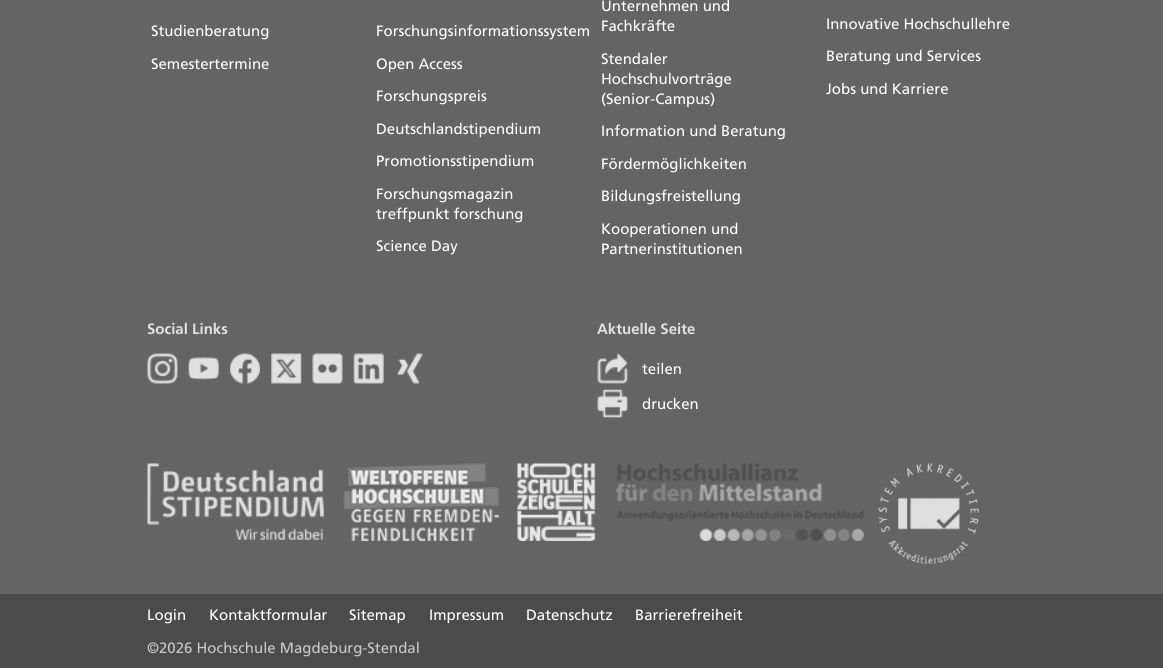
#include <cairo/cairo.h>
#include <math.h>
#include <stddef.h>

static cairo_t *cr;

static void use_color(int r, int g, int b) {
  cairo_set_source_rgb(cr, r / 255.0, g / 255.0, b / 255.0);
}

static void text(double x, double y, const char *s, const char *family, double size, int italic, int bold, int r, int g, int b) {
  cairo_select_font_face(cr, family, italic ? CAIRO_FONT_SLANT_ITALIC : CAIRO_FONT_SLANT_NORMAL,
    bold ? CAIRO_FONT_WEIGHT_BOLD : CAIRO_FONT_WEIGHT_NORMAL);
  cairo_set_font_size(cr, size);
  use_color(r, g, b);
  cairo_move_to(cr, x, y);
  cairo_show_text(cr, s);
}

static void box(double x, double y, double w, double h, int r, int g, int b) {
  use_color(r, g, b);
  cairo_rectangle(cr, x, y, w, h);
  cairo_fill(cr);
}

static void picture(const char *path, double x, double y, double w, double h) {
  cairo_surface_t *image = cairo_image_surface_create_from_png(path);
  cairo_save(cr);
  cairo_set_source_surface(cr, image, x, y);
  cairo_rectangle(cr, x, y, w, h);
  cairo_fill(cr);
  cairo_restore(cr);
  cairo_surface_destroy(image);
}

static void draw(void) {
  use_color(100, 100, 100);
  cairo_paint(cr);
  picture("img_01.png", 147, 353, 31, 31);
  picture("img_02.png", 188, 357, 31, 23);
  picture("img_03.png", 230, 353, 30, 31);
  picture("img_04.png", 271, 353, 31, 31);
  picture("img_05.png", 312, 353, 31, 31);
  picture("img_06.png", 353, 353, 31, 31);
  picture("img_07.png", 397, 353, 26, 31);
  picture("img_08.png", 597, 353, 31, 31);
  picture("img_09.png", 597, 389, 31, 29);
  picture("img_10.png", 147, 463, 177, 77);
  picture("img_11.png", 343, 463, 156, 78);
  picture("img_12.png", 517, 463, 79, 78);
  picture("img_13.png", 616, 463, 248, 78);
  picture("img_14.png", 878, 463, 101, 101);
  box(0, 594, 1163, 74, 75, 75, 75);
  text(151, 36, "Studienberatung", "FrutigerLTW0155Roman", 15, 0, 0, 255, 255, 255);
  text(151, 69, "Semestertermine", "FrutigerLTW0155Roman", 15, 0, 0, 255, 255, 255);
  text(376, 36, "Forschungsinformationssystem", "FrutigerLTW0155Roman", 15, 0, 0, 255, 255, 255);
  text(376, 69, "Open Access", "FrutigerLTW0155Roman", 15, 0, 0, 255, 255, 255);
  text(376, 101, "Forschungspreis", "FrutigerLTW0155Roman", 15, 0, 0, 255, 255, 255);
  text(376, 134, "Deutschlandstipendium", "FrutigerLTW0155Roman", 15, 0, 0, 255, 255, 255);
  text(376, 166, "Promotionsstipendium", "FrutigerLTW0155Roman", 15, 0, 0, 255, 255, 255);
  text(376, 199, "Forschungsmagazin", "FrutigerLTW0155Roman", 15, 0, 0, 255, 255, 255);
  text(376, 219, "treffpunkt forschung", "FrutigerLTW0155Roman", 15, 0, 0, 255, 255, 255);
  text(376, 251, "Science Day", "FrutigerLTW0155Roman", 15, 0, 0, 255, 255, 255);
  text(601, 11, "Unternehmen und", "FrutigerLTW0155Roman", 15, 0, 0, 255, 255, 255);
  text(601, 31, "Fachkräfte", "FrutigerLTW0155Roman", 15, 0, 0, 255, 255, 255);
  text(601, 64, "Stendaler", "FrutigerLTW0155Roman", 15, 0, 0, 255, 255, 255);
  text(601, 84, "Hochschulvorträge", "FrutigerLTW0155Roman", 15, 0, 0, 255, 255, 255);
  text(601, 104, "(Senior-Campus)", "FrutigerLTW0155Roman", 15, 0, 0, 255, 255, 255);
  text(601, 136, "Information und Beratung", "FrutigerLTW0155Roman", 15, 0, 0, 255, 255, 255);
  text(601, 169, "Fördermöglichkeiten", "FrutigerLTW0155Roman", 15, 0, 0, 255, 255, 255);
  text(601, 201, "Bildungsfreistellung", "FrutigerLTW0155Roman", 15, 0, 0, 255, 255, 255);
  text(601, 234, "Kooperationen und", "FrutigerLTW0155Roman", 15, 0, 0, 255, 255, 255);
  text(601, 254, "Partnerinstitutionen", "FrutigerLTW0155Roman", 15, 0, 0, 255, 255, 255);
  text(826, 29, "Innovative Hochschullehre", "FrutigerLTW0155Roman", 15, 0, 0, 255, 255, 255);
  text(826, 61, "Beratung und Services", "FrutigerLTW0155Roman", 15, 0, 0, 255, 255, 255);
  text(826, 94, "Jobs und Karriere", "FrutigerLTW0155Roman", 15, 0, 0, 255, 255, 255);
  text(147, 334, "Social Links", "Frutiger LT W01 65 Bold", 15, 0, 1, 225, 225, 225);
  text(597, 334, "Aktuelle Seite", "Frutiger LT W01 65 Bold", 15, 0, 1, 225, 225, 225);
  text(642, 374, "teilen", "FrutigerLTW0155Roman", 15, 0, 0, 255, 255, 255);
  text(642, 409, "drucken", "FrutigerLTW0155Roman", 15, 0, 0, 255, 255, 255);
  text(147, 620, "Login", "FrutigerLTW0155Roman", 15, 0, 0, 255, 255, 255);
  text(209, 620, "Kontaktformular", "FrutigerLTW0155Roman", 15, 0, 0, 255, 255, 255);
  text(349, 620, "Sitemap", "FrutigerLTW0155Roman", 15, 0, 0, 255, 255, 255);
  text(429, 620, "Impressum", "FrutigerLTW0155Roman", 15, 0, 0, 255, 255, 255);
  text(526, 620, "Datenschutz", "FrutigerLTW0155Roman", 15, 0, 0, 255, 255, 255);
  text(635, 620, "Barrierefreiheit", "FrutigerLTW0155Roman", 15, 0, 0, 255, 255, 255);
  text(147, 653, "©2026 Hochschule Magdeburg-Stendal", "FrutigerLTW0155Roman", 15, 0, 0, 200, 200, 200);
}

int main(void) {
  cairo_surface_t *surface = cairo_image_surface_create(CAIRO_FORMAT_RGB24, 1163, 668);
  cr = cairo_create(surface);
  cairo_font_options_t *options = cairo_font_options_create();
  cairo_font_options_set_hint_metrics(options, CAIRO_HINT_METRICS_OFF);
  cairo_font_options_set_hint_style(options, CAIRO_HINT_STYLE_NONE);
  cairo_set_font_options(cr, options);
  cairo_set_miter_limit(cr, 4);
  draw();
  cairo_surface_write_to_png(surface, "out.png");
  cairo_font_options_destroy(options);
  cairo_destroy(cr);
  cairo_surface_destroy(surface);
  return 0;
}
